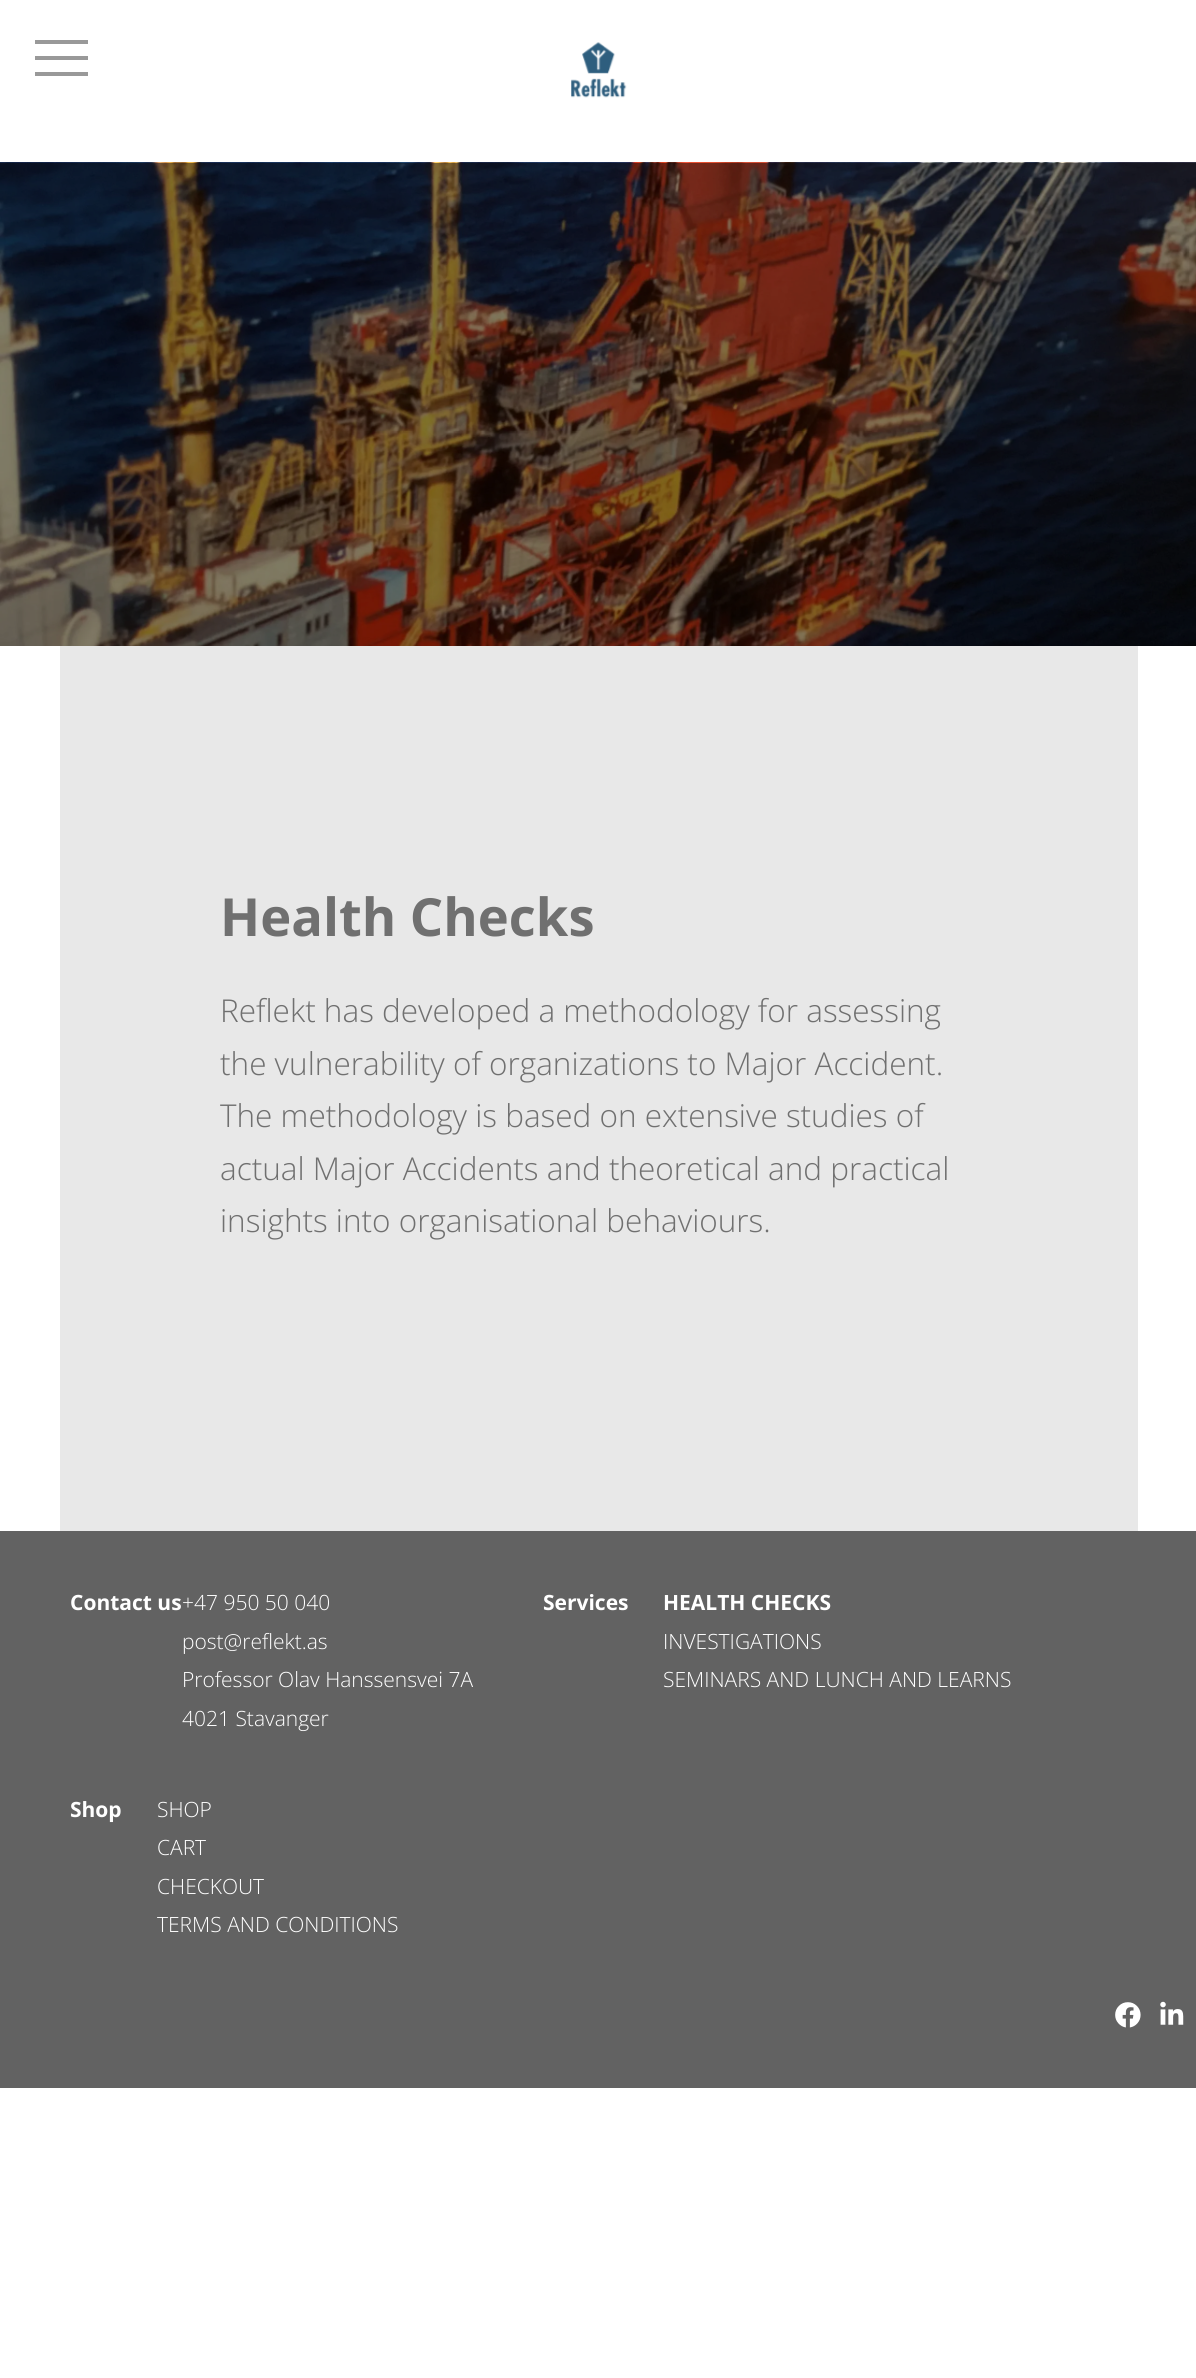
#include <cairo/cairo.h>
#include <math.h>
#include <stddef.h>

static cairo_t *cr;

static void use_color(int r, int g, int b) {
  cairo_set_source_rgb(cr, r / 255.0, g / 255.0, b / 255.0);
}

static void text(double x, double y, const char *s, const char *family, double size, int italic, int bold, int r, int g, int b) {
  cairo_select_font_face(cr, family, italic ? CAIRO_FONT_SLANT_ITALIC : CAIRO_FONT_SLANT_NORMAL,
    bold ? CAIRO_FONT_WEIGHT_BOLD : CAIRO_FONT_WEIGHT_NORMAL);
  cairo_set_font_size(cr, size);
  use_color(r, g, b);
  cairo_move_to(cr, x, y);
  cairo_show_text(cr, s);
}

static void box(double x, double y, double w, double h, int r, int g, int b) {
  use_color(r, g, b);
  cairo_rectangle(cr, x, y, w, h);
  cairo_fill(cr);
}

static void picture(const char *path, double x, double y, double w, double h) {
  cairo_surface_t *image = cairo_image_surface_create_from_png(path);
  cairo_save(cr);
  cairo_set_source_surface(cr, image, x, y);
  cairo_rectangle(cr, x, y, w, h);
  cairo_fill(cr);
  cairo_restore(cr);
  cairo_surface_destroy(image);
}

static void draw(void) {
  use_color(255, 255, 255);
  cairo_paint(cr);
  box(35, 40, 53, 4, 153, 153, 153);
  box(35, 56, 53, 4, 153, 153, 153);
  box(35, 72, 53, 4, 153, 153, 153);
  picture("img_01.png", 571, 42, 56, 56);
  picture("img_02.png", 0, 162, 1196, 484);
  box(60, 646, 1078, 885, 232, 232, 232);
  box(0, 1531, 1196, 557, 98, 98, 98);
  picture("img_03.png", 1115, 2002, 26, 26);
  picture("img_04.png", 1160, 2001, 24, 24);
  text(220, 936, "Health Checks", "Open Sans", 52.5, 0, 1, 112, 112, 112);
  text(220, 1022, "Reflekt has developed a methodology for assessing", "Open Sans Light", 31.5, 0, 0, 112, 112, 112);
  text(220, 1075, "the vulnerability of organizations to Major Accident.", "Open Sans Light", 31.5, 0, 0, 112, 112, 112);
  text(220, 1127, "The methodology is based on extensive studies of", "Open Sans Light", 31.5, 0, 0, 112, 112, 112);
  text(220, 1180, "actual Major Accidents and theoretical and practical", "Open Sans Light", 31.5, 0, 0, 112, 112, 112);
  text(220, 1232, "insights into organisational behaviours.", "Open Sans Light", 31.5, 0, 0, 112, 112, 112);
  text(70, 1610, "Contact us", "Open Sans", 21, 0, 1, 255, 255, 255);
  text(182, 1610, "+47 950 50 040", "Open Sans Light", 21, 0, 0, 255, 255, 255);
  text(182, 1649, "post@reflekt.as", "Open Sans Light", 21, 0, 0, 255, 255, 255);
  text(182, 1687, "Professor Olav Hanssensvei 7A", "Open Sans Light", 21, 0, 0, 255, 255, 255);
  text(182, 1726, "4021 Stavanger", "Open Sans Light", 21, 0, 0, 255, 255, 255);
  text(543, 1610, "Services", "Open Sans", 21, 0, 1, 255, 255, 255);
  text(663, 1610, "HEALTH CHECKS", "Open Sans", 21, 0, 1, 255, 255, 255);
  text(663, 1649, "INVESTIGATIONS", "Open Sans Light", 21, 0, 0, 255, 255, 255);
  text(663, 1687, "SEMINARS AND LUNCH AND LEARNS", "Open Sans Light", 21, 0, 0, 255, 255, 255);
  text(70, 1817, "Shop", "Open Sans", 21, 0, 1, 255, 255, 255);
  text(157, 1817, "SHOP", "Open Sans Light", 21, 0, 0, 255, 255, 255);
  text(157, 1855, "CART", "Open Sans Light", 21, 0, 0, 255, 255, 255);
  text(157, 1894, "CHECKOUT", "Open Sans Light", 21, 0, 0, 255, 255, 255);
  text(157, 1932, "TERMS AND CONDITIONS", "Open Sans Light", 21, 0, 0, 255, 255, 255);
}

int main(void) {
  cairo_surface_t *surface = cairo_image_surface_create(CAIRO_FORMAT_RGB24, 1196, 2378);
  cr = cairo_create(surface);
  cairo_font_options_t *options = cairo_font_options_create();
  cairo_font_options_set_hint_metrics(options, CAIRO_HINT_METRICS_OFF);
  cairo_font_options_set_hint_style(options, CAIRO_HINT_STYLE_NONE);
  cairo_set_font_options(cr, options);
  cairo_set_miter_limit(cr, 4);
  draw();
  cairo_surface_write_to_png(surface, "out.png");
  cairo_font_options_destroy(options);
  cairo_destroy(cr);
  cairo_surface_destroy(surface);
  return 0;
}
